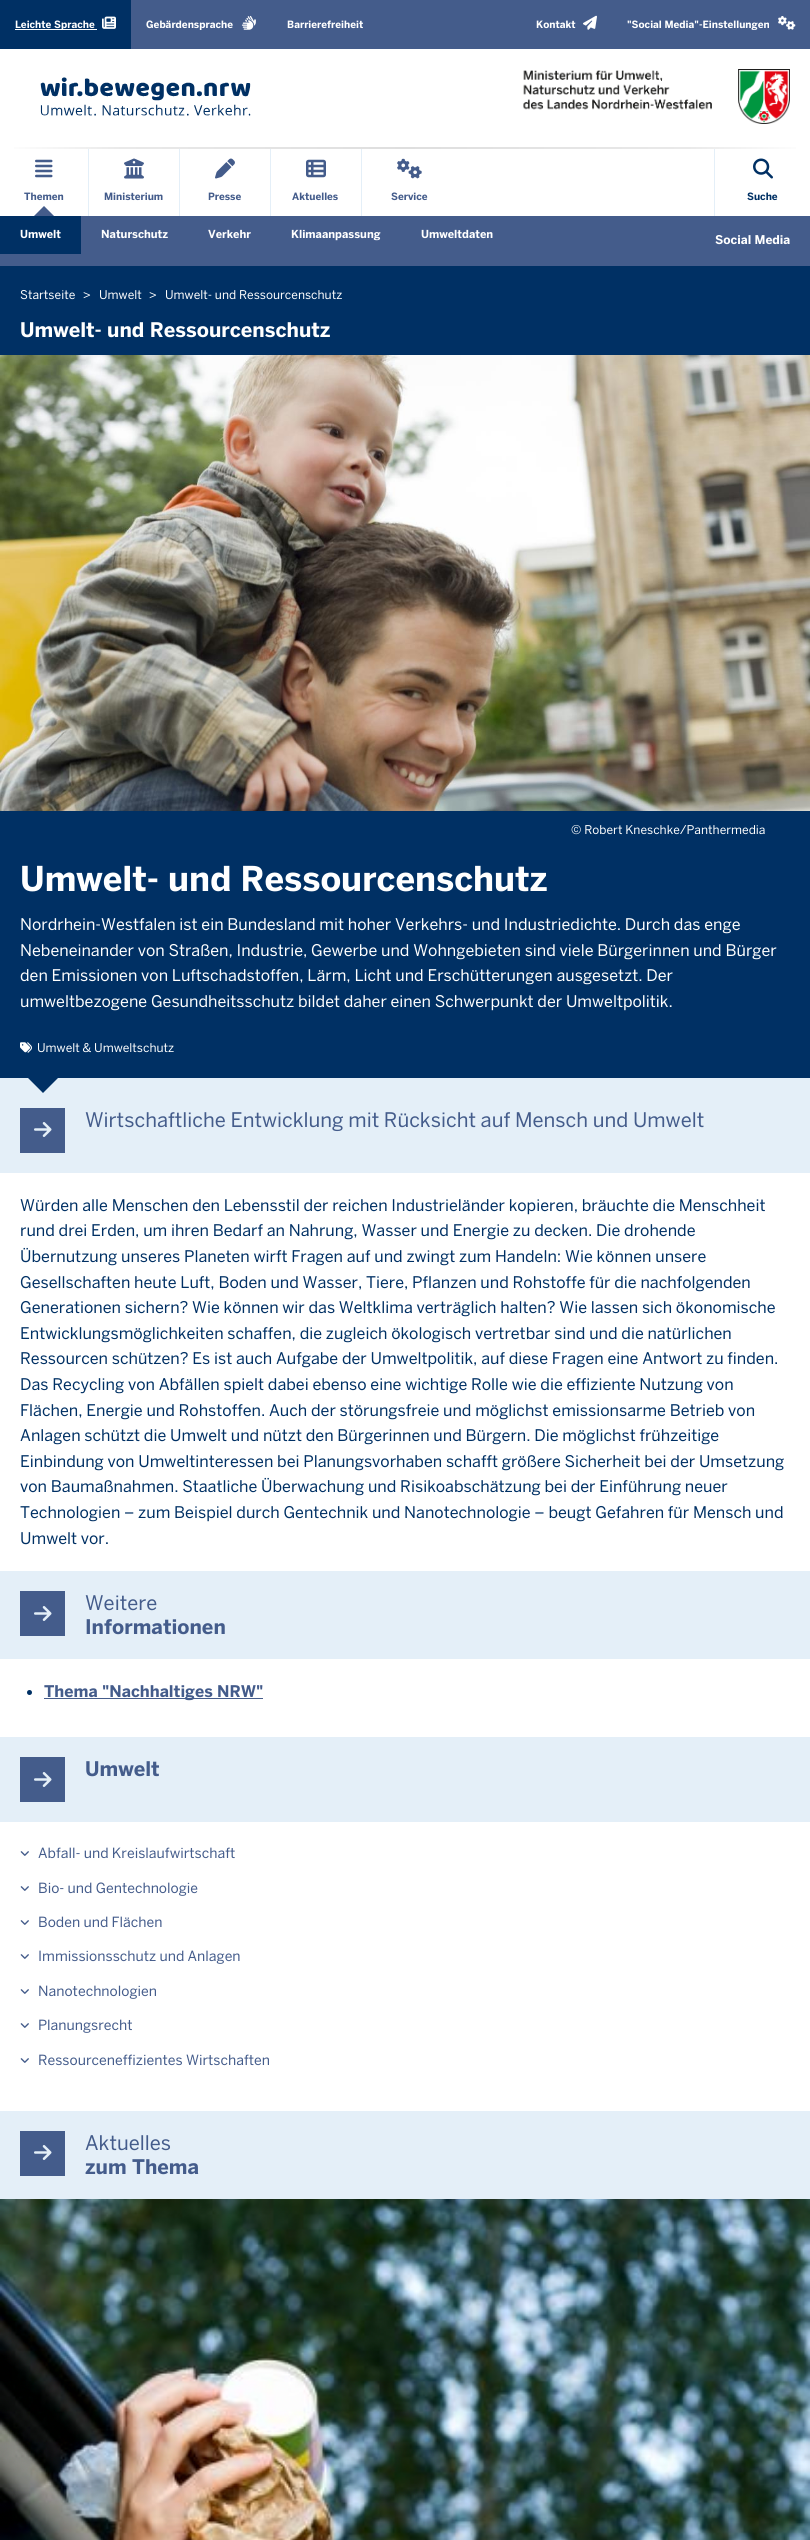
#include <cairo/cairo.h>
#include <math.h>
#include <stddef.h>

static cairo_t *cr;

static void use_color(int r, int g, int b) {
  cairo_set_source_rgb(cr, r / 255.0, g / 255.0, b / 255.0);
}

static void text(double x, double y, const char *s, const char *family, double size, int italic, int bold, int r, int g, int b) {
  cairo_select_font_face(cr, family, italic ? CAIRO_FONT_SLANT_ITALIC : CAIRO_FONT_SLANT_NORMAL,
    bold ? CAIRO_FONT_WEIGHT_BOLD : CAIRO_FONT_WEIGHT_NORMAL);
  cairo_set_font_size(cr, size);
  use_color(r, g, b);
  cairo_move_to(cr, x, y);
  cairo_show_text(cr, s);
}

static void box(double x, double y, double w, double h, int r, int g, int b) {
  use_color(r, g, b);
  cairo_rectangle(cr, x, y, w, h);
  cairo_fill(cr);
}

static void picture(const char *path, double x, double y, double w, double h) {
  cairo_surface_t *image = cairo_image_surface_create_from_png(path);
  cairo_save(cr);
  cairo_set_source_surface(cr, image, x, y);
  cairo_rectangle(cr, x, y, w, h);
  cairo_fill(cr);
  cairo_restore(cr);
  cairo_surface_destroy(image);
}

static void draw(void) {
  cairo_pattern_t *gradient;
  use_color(255, 255, 255);
  cairo_paint(cr);
  box(131, 0, 679, 49, 68, 92, 139);
  box(0, 0, 131, 49, 0, 48, 100);
  box(15, 29, 82, 1, 255, 255, 255);
  picture("img_01.png", 102, 16, 14, 13);
  picture("img_02.png", 241, 15, 15, 15);
  picture("img_03.png", 583, 15, 14, 15);
  picture("img_04.png", 778, 16, 18, 14);
  picture("img_05.png", 40, 77, 211, 39);
  picture("img_06.png", 523, 69, 267, 55);
  gradient = cairo_pattern_create_linear(0, 182, 810, 181);
  cairo_pattern_add_color_stop_rgba(gradient, 0, 1, 1, 1, 1);
  cairo_pattern_add_color_stop_rgba(gradient, 0.15, 0.914, 0.914, 0.914, 1);
  cairo_pattern_add_color_stop_rgba(gradient, 0.5, 0.871, 0.871, 0.871, 1);
  cairo_pattern_add_color_stop_rgba(gradient, 0.85, 0.914, 0.914, 0.914, 1);
  cairo_pattern_add_color_stop_rgba(gradient, 1, 1, 1, 1, 1);
  cairo_set_source(cr, gradient);
  cairo_pattern_destroy(gradient);
  cairo_rectangle(cr, 14, 147, 782, 2);
  cairo_fill(cr);
  box(88, 149, 1, 67, 228, 239, 248);
  picture("img_07.png", 35, 159, 18, 19);
  use_color(68, 92, 139);
  cairo_new_path(cr);
  cairo_move_to(cr, 54, 216);
  cairo_line_to(cr, 34, 216);
  cairo_line_to(cr, 44, 206);
  cairo_close_path(cr);
  cairo_fill(cr);
  box(179, 149, 1, 67, 228, 239, 248);
  picture("img_08.png", 124, 158, 20, 21);
  box(270, 149, 1, 67, 228, 239, 248);
  picture("img_09.png", 215, 158, 20, 21);
  box(361, 149, 1, 67, 228, 239, 248);
  picture("img_10.png", 306, 159, 20, 19);
  picture("img_11.png", 397, 158, 25, 21);
  box(714, 149, 1, 67, 228, 239, 248);
  picture("img_12.png", 753, 158, 20, 21);
  box(0, 216, 810, 50, 68, 92, 139);
  box(0, 216, 81, 38, 0, 48, 100);
  box(0, 266, 810, 89, 0, 48, 100);
  box(0, 811, 810, 267, 0, 48, 100);
  picture("img_13.png", 0, 355, 810, 456);
  picture("img_14.png", 20, 1042, 12, 11);
  box(0, 1078, 810, 95, 228, 239, 248);
  use_color(0, 48, 100);
  cairo_new_path(cr);
  cairo_move_to(cr, 28, 1078);
  cairo_line_to(cr, 58, 1078);
  cairo_line_to(cr, 43, 1093);
  cairo_close_path(cr);
  cairo_fill(cr);
  box(20, 1108, 45, 45, 68, 92, 139);
  picture("img_15.png", 34, 1122, 18, 15);
  box(0, 1571, 810, 88, 228, 239, 248);
  box(20, 1591, 45, 45, 68, 92, 139);
  picture("img_15.png", 34, 1606, 18, 15);
  use_color(0, 48, 100);
  cairo_arc(cr, 29.5, 1692.5, 2.5, 0, 2 * M_PI);
  cairo_fill(cr);
  box(44, 1698, 219, 1, 68, 92, 139);
  box(0, 1737, 810, 85, 228, 239, 248);
  box(20, 1757, 45, 45, 68, 92, 139);
  picture("img_15.png", 34, 1772, 18, 15);
  picture("img_16.png", 20, 1851, 9, 5);
  picture("img_16.png", 20, 1886, 9, 5);
  picture("img_16.png", 20, 1920, 9, 5);
  picture("img_16.png", 20, 1954, 9, 5);
  picture("img_16.png", 20, 1989, 9, 5);
  picture("img_16.png", 20, 2023, 9, 5);
  picture("img_16.png", 20, 2058, 9, 5);
  box(0, 2111, 810, 88, 228, 239, 248);
  box(20, 2131, 45, 45, 68, 92, 139);
  picture("img_15.png", 34, 2145, 18, 15);
  picture("img_17.png", 0, 2199, 810, 341);
  text(15, 28, "Leichte Sprache", "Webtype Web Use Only", 10, 0, 1, 255, 255, 255);
  text(146, 28, "Gebärdensprache", "Webtype Web Use Only", 10, 0, 1, 255, 255, 255);
  text(287, 28, "Barrierefreiheit", "Webtype Web Use Only", 10, 0, 1, 255, 255, 255);
  text(536, 28, "Kontakt", "Webtype Web Use Only", 10, 0, 1, 255, 255, 255);
  text(627, 28, "\"Social Media\"-Einstellungen", "Webtype Web Use Only", 10, 0, 1, 255, 255, 255);
  text(24, 200, "Themen", "Webtype Web Use Only", 10, 0, 1, 68, 92, 139);
  text(104, 200, "Ministerium", "Webtype Web Use Only", 10, 0, 1, 68, 92, 139);
  text(208, 200, "Presse", "Webtype Web Use Only", 10, 0, 1, 68, 92, 139);
  text(292, 200, "Aktuelles", "Webtype Web Use Only", 10, 0, 1, 68, 92, 139);
  text(391, 200, "Service", "Webtype Web Use Only", 10, 0, 1, 68, 92, 139);
  text(747, 200, "Suche", "Webtype Web Use Only", 10, 0, 1, 0, 48, 100);
  text(20, 238, "Umwelt", "Webtype Web Use Only", 11, 0, 1, 255, 255, 255);
  text(101, 238, "Naturschutz", "Webtype Web Use Only", 11, 0, 1, 255, 255, 255);
  text(208, 238, "Verkehr", "Webtype Web Use Only", 11, 0, 1, 255, 255, 255);
  text(291, 238, "Klimaanpassung", "Webtype Web Use Only", 11, 0, 1, 255, 255, 255);
  text(421, 238, "Umweltdaten", "Webtype Web Use Only", 11, 0, 1, 255, 255, 255);
  text(715, 244, "Social Media", "Webtype Web Use Only", 12, 0, 1, 255, 255, 255);
  text(20, 299, "Startseite", "Webtype Web Use Only", 12, 0, 0, 255, 255, 255);
  text(83, 299, ">", "Webtype Web Use Only", 12, 0, 0, 255, 255, 255);
  text(99, 299, "Umwelt", "Webtype Web Use Only", 12, 0, 0, 255, 255, 255);
  text(149, 299, ">", "Webtype Web Use Only", 12, 0, 0, 255, 255, 255);
  text(165, 299, "Umwelt- und Ressourcenschutz", "Webtype Web Use Only", 12, 0, 0, 255, 255, 255);
  text(20, 337, "Umwelt- und Ressourcenschutz", "Webtype Web Use Only", 20, 0, 1, 255, 255, 255);
  text(571, 834, "© Robert Kneschke/Panthermedia", "Webtype Web Use Only", 12, 0, 0, 255, 255, 255);
  text(20, 891, "Umwelt- und Ressourcenschutz", "Webtype Web Use Only", 34, 0, 1, 255, 255, 255);
  text(20, 930, "Nordrhein-Westfalen ist ein Bundesland mit hoher Verkehrs- und Industriedichte. Durch das enge", "Webtype Web Use Only", 16, 0, 0, 255, 255, 255);
  text(20, 956, "Nebeneinander von Straßen, Industrie, Gewerbe und Wohngebieten sind viele Bürgerinnen und Bürger", "Webtype Web Use Only", 16, 0, 0, 255, 255, 255);
  text(20, 981, "den Emissionen von Luftschadstoffen, Lärm, Licht und Erschütterungen ausgesetzt. Der", "Webtype Web Use Only", 16, 0, 0, 255, 255, 255);
  text(20, 1007, "umweltbezogene Gesundheitsschutz bildet daher einen Schwerpunkt der Umweltpolitik.", "Webtype Web Use Only", 16, 0, 0, 255, 255, 255);
  text(37, 1052, "Umwelt & Umweltschutz", "Webtype Web Use Only", 12, 0, 0, 255, 255, 255);
  text(85, 1127, "Wirtschaftliche Entwicklung mit Rücksicht auf Mensch und Umwelt", "Webtype Web Use Only", 20, 0, 0, 68, 92, 139);
  text(20, 1211, "Würden alle Menschen den Lebensstil der reichen Industrieländer kopieren, bräuchte die Menschheit", "Webtype Web Use Only", 16, 0, 0, 0, 48, 100);
  text(20, 1236, "rund drei Erden, um ihren Bedarf an Nahrung, Wasser und Energie zu decken. Die drohende", "Webtype Web Use Only", 16, 0, 0, 0, 48, 100);
  text(20, 1262, "Übernutzung unseres Planeten wirft Fragen auf und zwingt zum Handeln: Wie können unsere", "Webtype Web Use Only", 16, 0, 0, 0, 48, 100);
  text(20, 1288, "Gesellschaften heute Luft, Boden und Wasser, Tiere, Pflanzen und Rohstoffe für die nachfolgenden", "Webtype Web Use Only", 16, 0, 0, 0, 48, 100);
  text(20, 1313, "Generationen sichern? Wie können wir das Weltklima verträglich halten? Wie lassen sich ökonomische", "Webtype Web Use Only", 16, 0, 0, 0, 48, 100);
  text(20, 1339, "Entwicklungsmöglichkeiten schaffen, die zugleich ökologisch vertretbar sind und die natürlichen", "Webtype Web Use Only", 16, 0, 0, 0, 48, 100);
  text(20, 1364, "Ressourcen schützen? Es ist auch Aufgabe der Umweltpolitik, auf diese Fragen eine Antwort zu finden.", "Webtype Web Use Only", 16, 0, 0, 0, 48, 100);
  text(20, 1390, "Das Recycling von Abfällen spielt dabei ebenso eine wichtige Rolle wie die effiziente Nutzung von", "Webtype Web Use Only", 16, 0, 0, 0, 48, 100);
  text(20, 1416, "Flächen, Energie und Rohstoffen. Auch der störungsfreie und möglichst emissionsarme Betrieb von", "Webtype Web Use Only", 16, 0, 0, 0, 48, 100);
  text(20, 1441, "Anlagen schützt die Umwelt und nützt den Bürgerinnen und Bürgern. Die möglichst frühzeitige", "Webtype Web Use Only", 16, 0, 0, 0, 48, 100);
  text(20, 1467, "Einbindung von Umweltinteressen bei Planungsvorhaben schafft größere Sicherheit bei der Umsetzung", "Webtype Web Use Only", 16, 0, 0, 0, 48, 100);
  text(20, 1492, "von Baumaßnahmen. Staatliche Überwachung und Risikoabschätzung bei der Einführung neuer", "Webtype Web Use Only", 16, 0, 0, 0, 48, 100);
  text(20, 1518, "Technologien – zum Beispiel durch Gentechnik und Nanotechnologie – beugt Gefahren für Mensch und", "Webtype Web Use Only", 16, 0, 0, 0, 48, 100);
  text(20, 1544, "Umwelt vor.", "Webtype Web Use Only", 16, 0, 0, 0, 48, 100);
  text(85, 1610, "Weitere", "Webtype Web Use Only", 20, 0, 0, 68, 92, 139);
  text(85, 1634, "Informationen", "Webtype Web Use Only", 20, 0, 1, 68, 92, 139);
  text(44, 1697, "Thema \"Nachhaltiges NRW\"", "Webtype Web Use Only", 16, 0, 1, 68, 92, 139);
  text(85, 1776, "Umwelt", "Webtype Web Use Only", 20, 0, 1, 68, 92, 139);
  text(38, 1858, "Abfall- und Kreislaufwirtschaft", "Webtype Web Use Only", 14, 0, 0, 68, 92, 139);
  text(38, 1893, "Bio- und Gentechnologie", "Webtype Web Use Only", 14, 0, 0, 68, 92, 139);
  text(38, 1927, "Boden und Flächen", "Webtype Web Use Only", 14, 0, 0, 68, 92, 139);
  text(38, 1961, "Immissionsschutz und Anlagen", "Webtype Web Use Only", 14, 0, 0, 68, 92, 139);
  text(38, 1996, "Nanotechnologien", "Webtype Web Use Only", 14, 0, 0, 68, 92, 139);
  text(38, 2030, "Planungsrecht", "Webtype Web Use Only", 14, 0, 0, 68, 92, 139);
  text(38, 2065, "Ressourceneffizientes Wirtschaften", "Webtype Web Use Only", 14, 0, 0, 68, 92, 139);
  text(85, 2150, "Aktuelles", "Webtype Web Use Only", 20, 0, 0, 68, 92, 139);
  text(85, 2174, "zum Thema", "Webtype Web Use Only", 20, 0, 1, 68, 92, 139);
}

int main(void) {
  cairo_surface_t *surface = cairo_image_surface_create(CAIRO_FORMAT_RGB24, 810, 2540);
  cr = cairo_create(surface);
  cairo_font_options_t *options = cairo_font_options_create();
  cairo_font_options_set_hint_metrics(options, CAIRO_HINT_METRICS_OFF);
  cairo_font_options_set_hint_style(options, CAIRO_HINT_STYLE_NONE);
  cairo_set_font_options(cr, options);
  cairo_set_miter_limit(cr, 4);
  draw();
  cairo_surface_write_to_png(surface, "out.png");
  cairo_font_options_destroy(options);
  cairo_destroy(cr);
  cairo_surface_destroy(surface);
  return 0;
}
